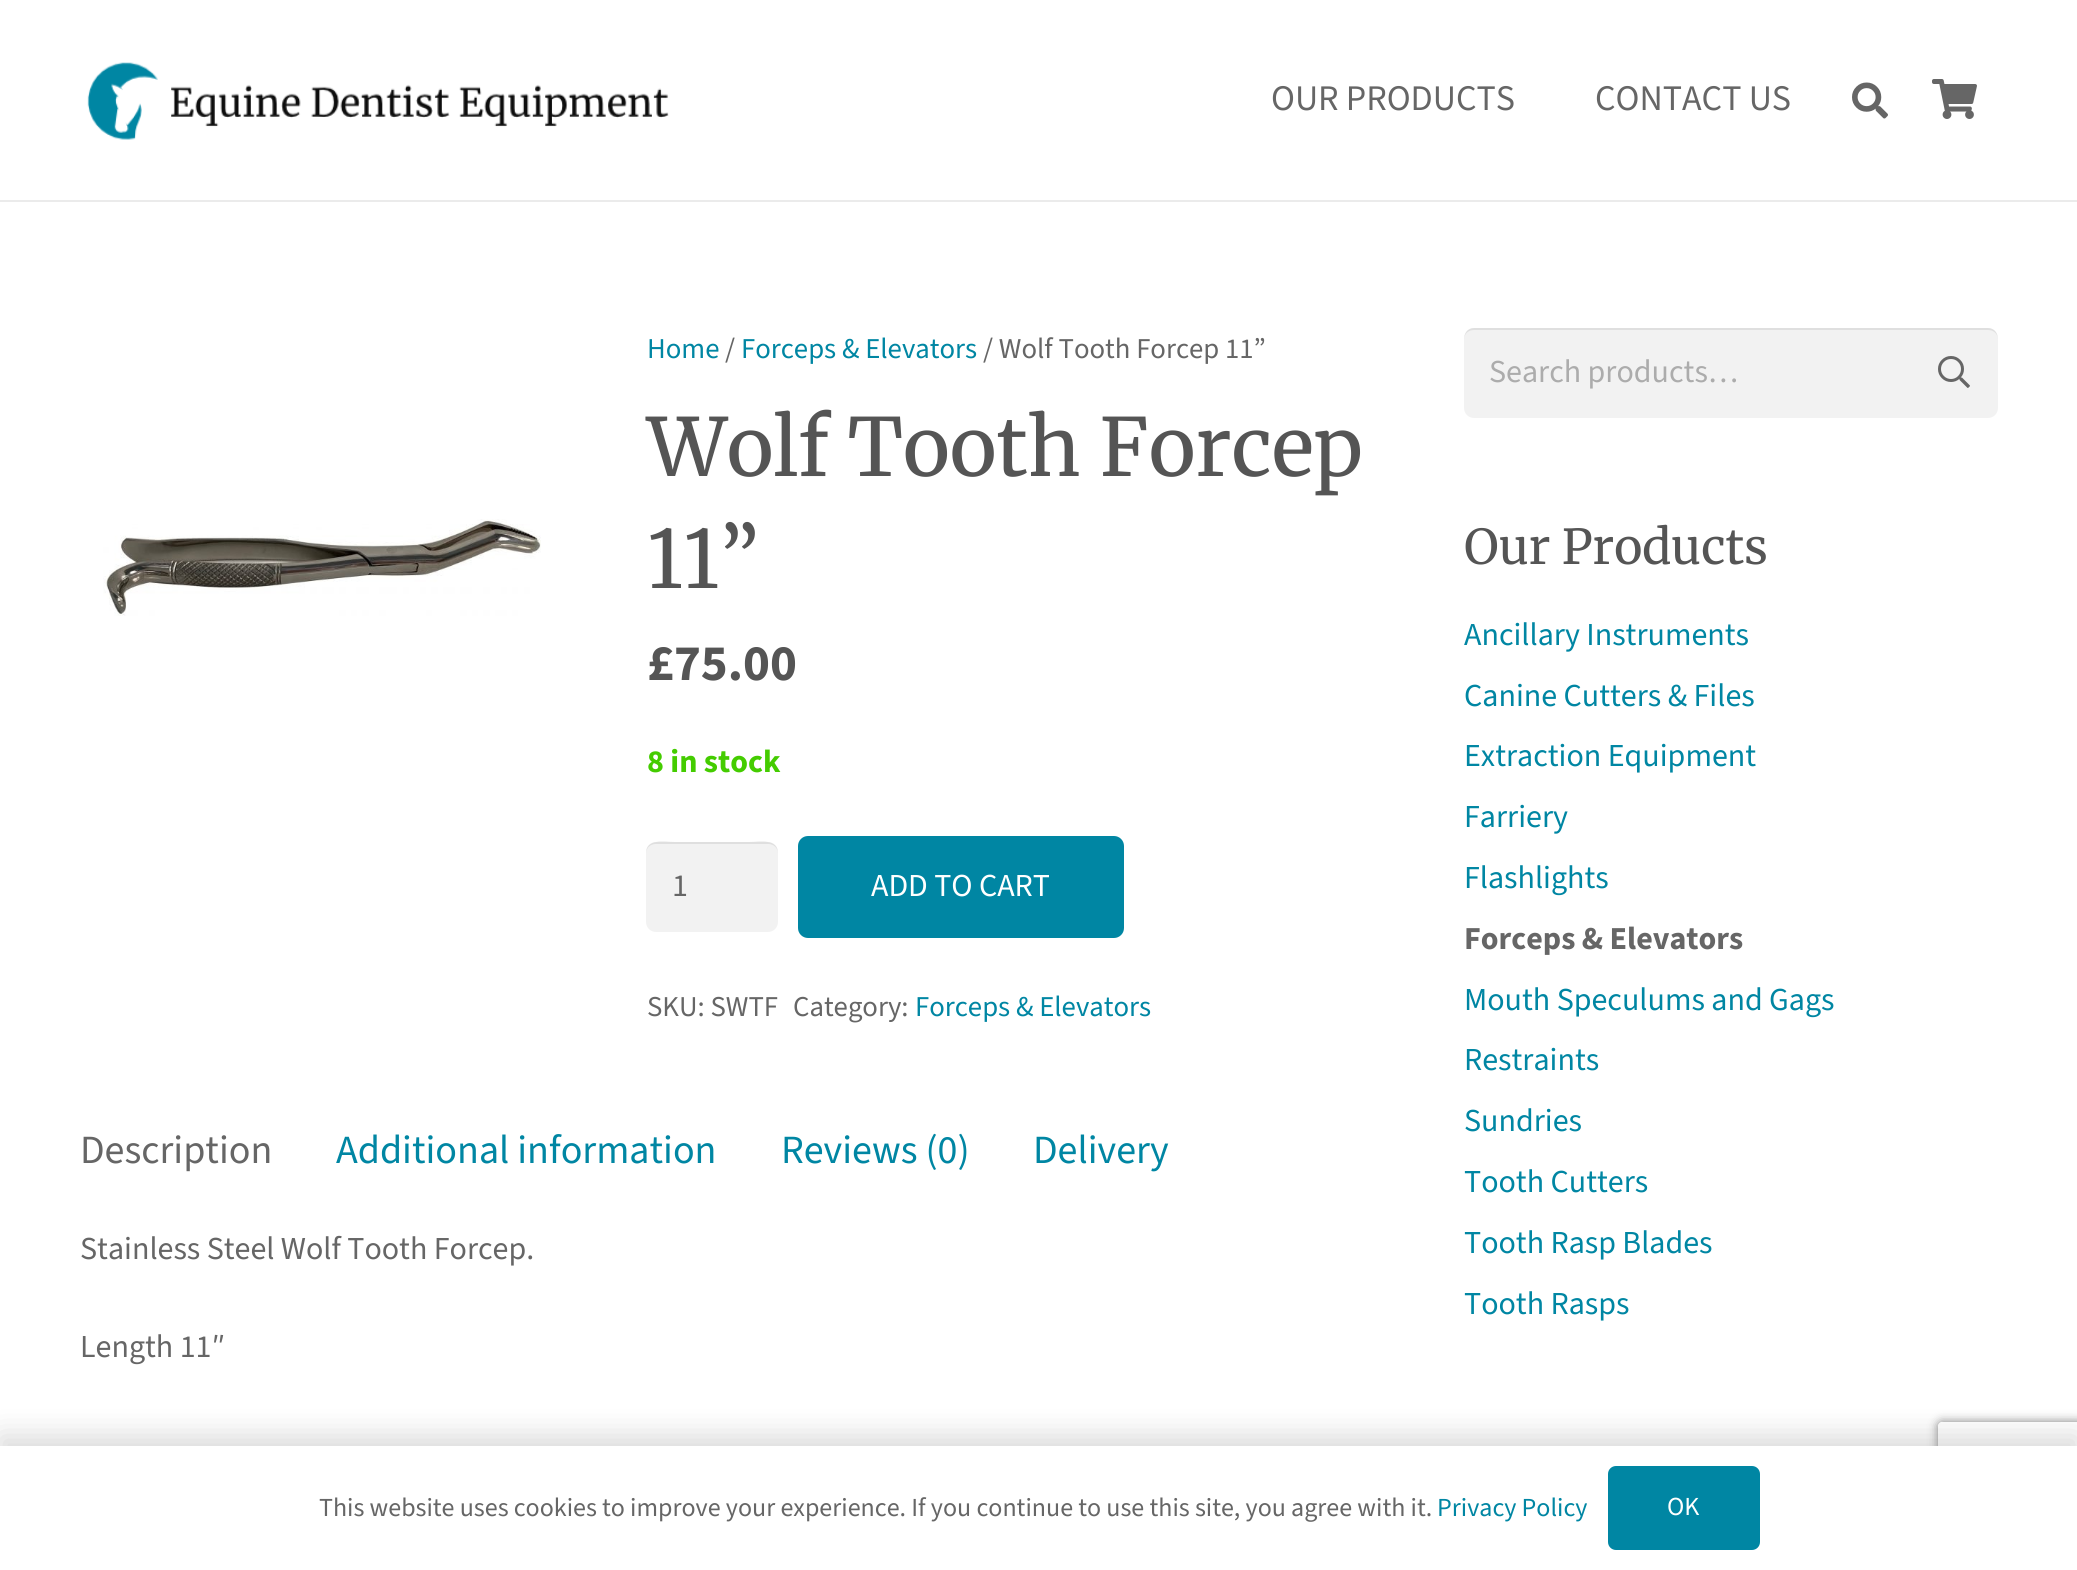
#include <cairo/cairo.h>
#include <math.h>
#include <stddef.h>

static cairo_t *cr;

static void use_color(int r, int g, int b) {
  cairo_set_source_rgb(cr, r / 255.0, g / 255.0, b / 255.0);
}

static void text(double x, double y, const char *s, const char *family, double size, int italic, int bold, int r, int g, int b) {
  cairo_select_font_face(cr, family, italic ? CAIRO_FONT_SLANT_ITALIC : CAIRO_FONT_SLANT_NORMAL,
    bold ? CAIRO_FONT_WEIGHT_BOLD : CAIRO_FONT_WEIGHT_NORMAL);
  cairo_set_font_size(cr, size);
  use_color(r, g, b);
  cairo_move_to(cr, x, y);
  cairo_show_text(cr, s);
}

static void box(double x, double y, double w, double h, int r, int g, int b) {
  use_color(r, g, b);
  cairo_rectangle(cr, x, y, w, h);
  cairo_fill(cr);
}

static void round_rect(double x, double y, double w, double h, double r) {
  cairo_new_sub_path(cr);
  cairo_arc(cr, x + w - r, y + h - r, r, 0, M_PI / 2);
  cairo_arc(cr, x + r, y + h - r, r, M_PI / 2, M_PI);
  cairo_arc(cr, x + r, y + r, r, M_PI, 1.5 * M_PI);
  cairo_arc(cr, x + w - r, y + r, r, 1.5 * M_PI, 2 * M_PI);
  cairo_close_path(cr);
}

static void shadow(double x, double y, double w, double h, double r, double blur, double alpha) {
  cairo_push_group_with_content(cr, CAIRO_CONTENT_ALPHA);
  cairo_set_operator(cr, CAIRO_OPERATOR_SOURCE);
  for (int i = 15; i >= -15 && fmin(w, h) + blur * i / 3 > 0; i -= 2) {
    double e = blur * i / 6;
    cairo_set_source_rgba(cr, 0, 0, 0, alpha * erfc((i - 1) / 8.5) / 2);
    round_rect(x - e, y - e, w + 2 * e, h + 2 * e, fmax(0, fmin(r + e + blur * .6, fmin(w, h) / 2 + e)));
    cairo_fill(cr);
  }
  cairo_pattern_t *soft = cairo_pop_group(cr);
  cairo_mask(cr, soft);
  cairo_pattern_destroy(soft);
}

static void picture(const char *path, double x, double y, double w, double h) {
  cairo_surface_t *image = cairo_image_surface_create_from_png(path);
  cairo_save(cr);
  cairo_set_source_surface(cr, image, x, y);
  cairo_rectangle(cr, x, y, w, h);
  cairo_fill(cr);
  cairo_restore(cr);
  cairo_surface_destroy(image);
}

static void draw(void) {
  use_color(255, 255, 255);
  cairo_paint(cr);
  box(0, 200, 2077, 2, 235, 235, 235);
  picture("img_01.png", 87, 62, 582, 78);
  picture("img_02.png", 1852, 82, 36, 37);
  picture("img_03.png", 1932, 79, 45, 40);
  picture("img_04.png", 103, 519, 438, 97);
  use_color(242, 242, 242);
  round_rect(646, 842, 132, 90, 10);
  cairo_fill(cr);
  use_color(223, 223, 223);
  cairo_new_path(cr);
  cairo_move_to(cr, 656, 844);
  cairo_line_to(cr, 768, 844);
  cairo_curve_to(cr, 774, 844, 778, 848, 778, 854);
  cairo_curve_to(cr, 778, 838, 761, 842, 749, 842);
  cairo_line_to(cr, 675, 842);
  cairo_curve_to(cr, 663, 842, 646, 838, 646, 854);
  cairo_curve_to(cr, 646, 848, 650, 844, 656, 844);
  cairo_close_path(cr);
  cairo_fill(cr);
  use_color(0, 134, 163);
  round_rect(798, 836, 326, 102, 10);
  cairo_fill(cr);
  use_color(242, 242, 242);
  round_rect(1464, 328, 534, 90, 10);
  cairo_fill(cr);
  cairo_set_source_rgba(cr, 0, 0, 0, 0.08);
  cairo_new_path(cr);
  cairo_move_to(cr, 1474, 330);
  cairo_line_to(cr, 1988, 330);
  cairo_curve_to(cr, 1994, 330, 1998, 334, 1998, 340);
  cairo_curve_to(cr, 1998, 334, 1995, 328, 1988, 328);
  cairo_line_to(cr, 1474, 328);
  cairo_curve_to(cr, 1467, 328, 1464, 334, 1464, 340);
  cairo_curve_to(cr, 1464, 334, 1468, 330, 1474, 330);
  cairo_close_path(cr);
  cairo_fill(cr);
  picture("img_05.png", 1938, 356, 32, 32);
  use_color(0, 0, 0);
  shadow(0, 1436, 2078, 124, 0, 15, 0.15);
  cairo_save(cr);
  cairo_set_fill_rule(cr, CAIRO_FILL_RULE_EVEN_ODD);
  cairo_new_path(cr);
  cairo_move_to(cr, 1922, 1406);
  cairo_line_to(cr, 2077, 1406);
  cairo_line_to(cr, 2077, 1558);
  cairo_line_to(cr, 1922, 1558);
  cairo_close_path(cr);
  cairo_move_to(cr, 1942, 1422);
  cairo_line_to(cr, 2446, 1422);
  cairo_curve_to(cr, 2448, 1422, 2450, 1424, 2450, 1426);
  cairo_line_to(cr, 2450, 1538);
  cairo_curve_to(cr, 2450, 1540, 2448, 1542, 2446, 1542);
  cairo_line_to(cr, 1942, 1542);
  cairo_curve_to(cr, 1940, 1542, 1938, 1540, 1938, 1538);
  cairo_line_to(cr, 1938, 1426);
  cairo_curve_to(cr, 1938, 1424, 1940, 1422, 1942, 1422);
  cairo_close_path(cr);
  cairo_clip(cr);
  use_color(128, 128, 128);
  shadow(1938, 1422, 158, 120, 4, 5, 1);
  cairo_restore(cr);
  box(0, 1446, 2077, 124, 255, 255, 255);
  use_color(0, 134, 163);
  round_rect(1608, 1466, 152, 84, 8);
  cairo_fill(cr);
  text(1271, 110, "OUR PRODUCTS", "Source Sans 3", 36, 0, 0, 102, 102, 102);
  text(1595, 110, "CONTACT US", "Source Sans 3", 36, 0, 0, 102, 102, 102);
  text(647, 358, "Home", "Source Sans 3", 28.75, 0, 0, 0, 134, 163);
  text(725, 358, "/", "Source Sans 3", 28.75, 0, 0, 102, 102, 102);
  text(741, 358, "Forceps & Elevators", "Source Sans 3", 28.75, 0, 0, 0, 134, 163);
  text(983, 358, "/ Wolf Tooth Forcep 11”", "Source Sans 3", 28.75, 0, 0, 102, 102, 102);
  text(647, 476, "Wolf Tooth Forcep", "Merriweather", 80, 0, 0, 85, 85, 85);
  text(647, 588, "11”", "Merriweather", 80, 0, 0, 85, 85, 85);
  text(647, 680, "£75.00", "Source Sans 3", 51, 0, 1, 85, 85, 85);
  text(647, 772, "8 in stock", "Source Sans 3", 32, 0, 1, 68, 204, 0);
  text(672, 896, "1", "Source Sans 3", 32, 0, 0, 102, 102, 102);
  text(871, 896, "ADD TO CART", "Source Sans 3", 32, 0, 0, 255, 255, 255);
  text(647, 1016, "SKU: SWTF", "Source Sans 3", 28.75, 0, 0, 102, 102, 102);
  text(793, 1016, "Category:", "Source Sans 3", 28.75, 0, 0, 102, 102, 102);
  text(915, 1016, "Forceps & Elevators", "Source Sans 3", 28.75, 0, 0, 0, 134, 163);
  text(80, 1163, "Description", "Source Sans 3", 40, 0, 0, 102, 102, 102);
  text(336, 1163, "Additional information", "Source Sans 3", 40, 0, 0, 0, 134, 163);
  text(781, 1163, "Reviews (0)", "Source Sans 3", 40, 0, 0, 0, 134, 163);
  text(1033, 1163, "Delivery", "Source Sans 3", 40, 0, 0, 0, 134, 163);
  text(80, 1259, "Stainless Steel Wolf Tooth Forcep.", "Source Sans 3", 32, 0, 0, 102, 102, 102);
  text(80, 1357, "Length 11″", "Source Sans 3", 32, 0, 0, 102, 102, 102);
  text(1489, 382, "Search products…", "Source Sans 3", 32, 0, 0, 172, 172, 172);
  text(1464, 564, "Our Products", "Merriweather", 48, 0, 0, 85, 85, 85);
  text(1464, 645, "Ancillary Instruments", "Source Sans 3", 32, 0, 0, 0, 134, 163);
  text(1464, 706, "Canine Cutters & Files", "Source Sans 3", 32, 0, 0, 0, 134, 163);
  text(1464, 766, "Extraction Equipment", "Source Sans 3", 32, 0, 0, 0, 134, 163);
  text(1464, 827, "Farriery", "Source Sans 3", 32, 0, 0, 0, 134, 163);
  text(1464, 888, "Flashlights", "Source Sans 3", 32, 0, 0, 0, 134, 163);
  text(1464, 949, "Forceps & Elevators", "Source Sans 3", 32, 0, 1, 102, 102, 102);
  text(1464, 1010, "Mouth Speculums and Gags", "Source Sans 3", 32, 0, 0, 0, 134, 163);
  text(1464, 1070, "Restraints", "Source Sans 3", 32, 0, 0, 0, 134, 163);
  text(1464, 1131, "Sundries", "Source Sans 3", 32, 0, 0, 0, 134, 163);
  text(1464, 1192, "Tooth Cutters", "Source Sans 3", 32, 0, 0, 0, 134, 163);
  text(1464, 1253, "Tooth Rasp Blades", "Source Sans 3", 32, 0, 0, 0, 134, 163);
  text(1464, 1314, "Tooth Rasps", "Source Sans 3", 32, 0, 0, 0, 134, 163);
  text(319, 1516, "This website uses cookies to improve your experience. If you continue to use this site, you agree with it.", "Source Sans 3", 26, 0, 0, 102, 102, 102);
  text(1437, 1516, "Privacy Policy", "Source Sans 3", 26, 0, 0, 0, 134, 163);
  text(1667, 1515, "OK", "Source Sans 3", 26, 0, 0, 255, 255, 255);
}

int main(void) {
  cairo_surface_t *surface = cairo_image_surface_create(CAIRO_FORMAT_RGB24, 2077, 1570);
  cr = cairo_create(surface);
  cairo_font_options_t *options = cairo_font_options_create();
  cairo_font_options_set_hint_metrics(options, CAIRO_HINT_METRICS_OFF);
  cairo_font_options_set_hint_style(options, CAIRO_HINT_STYLE_NONE);
  cairo_set_font_options(cr, options);
  cairo_set_miter_limit(cr, 4);
  draw();
  cairo_surface_write_to_png(surface, "out.png");
  cairo_font_options_destroy(options);
  cairo_destroy(cr);
  cairo_surface_destroy(surface);
  return 0;
}
